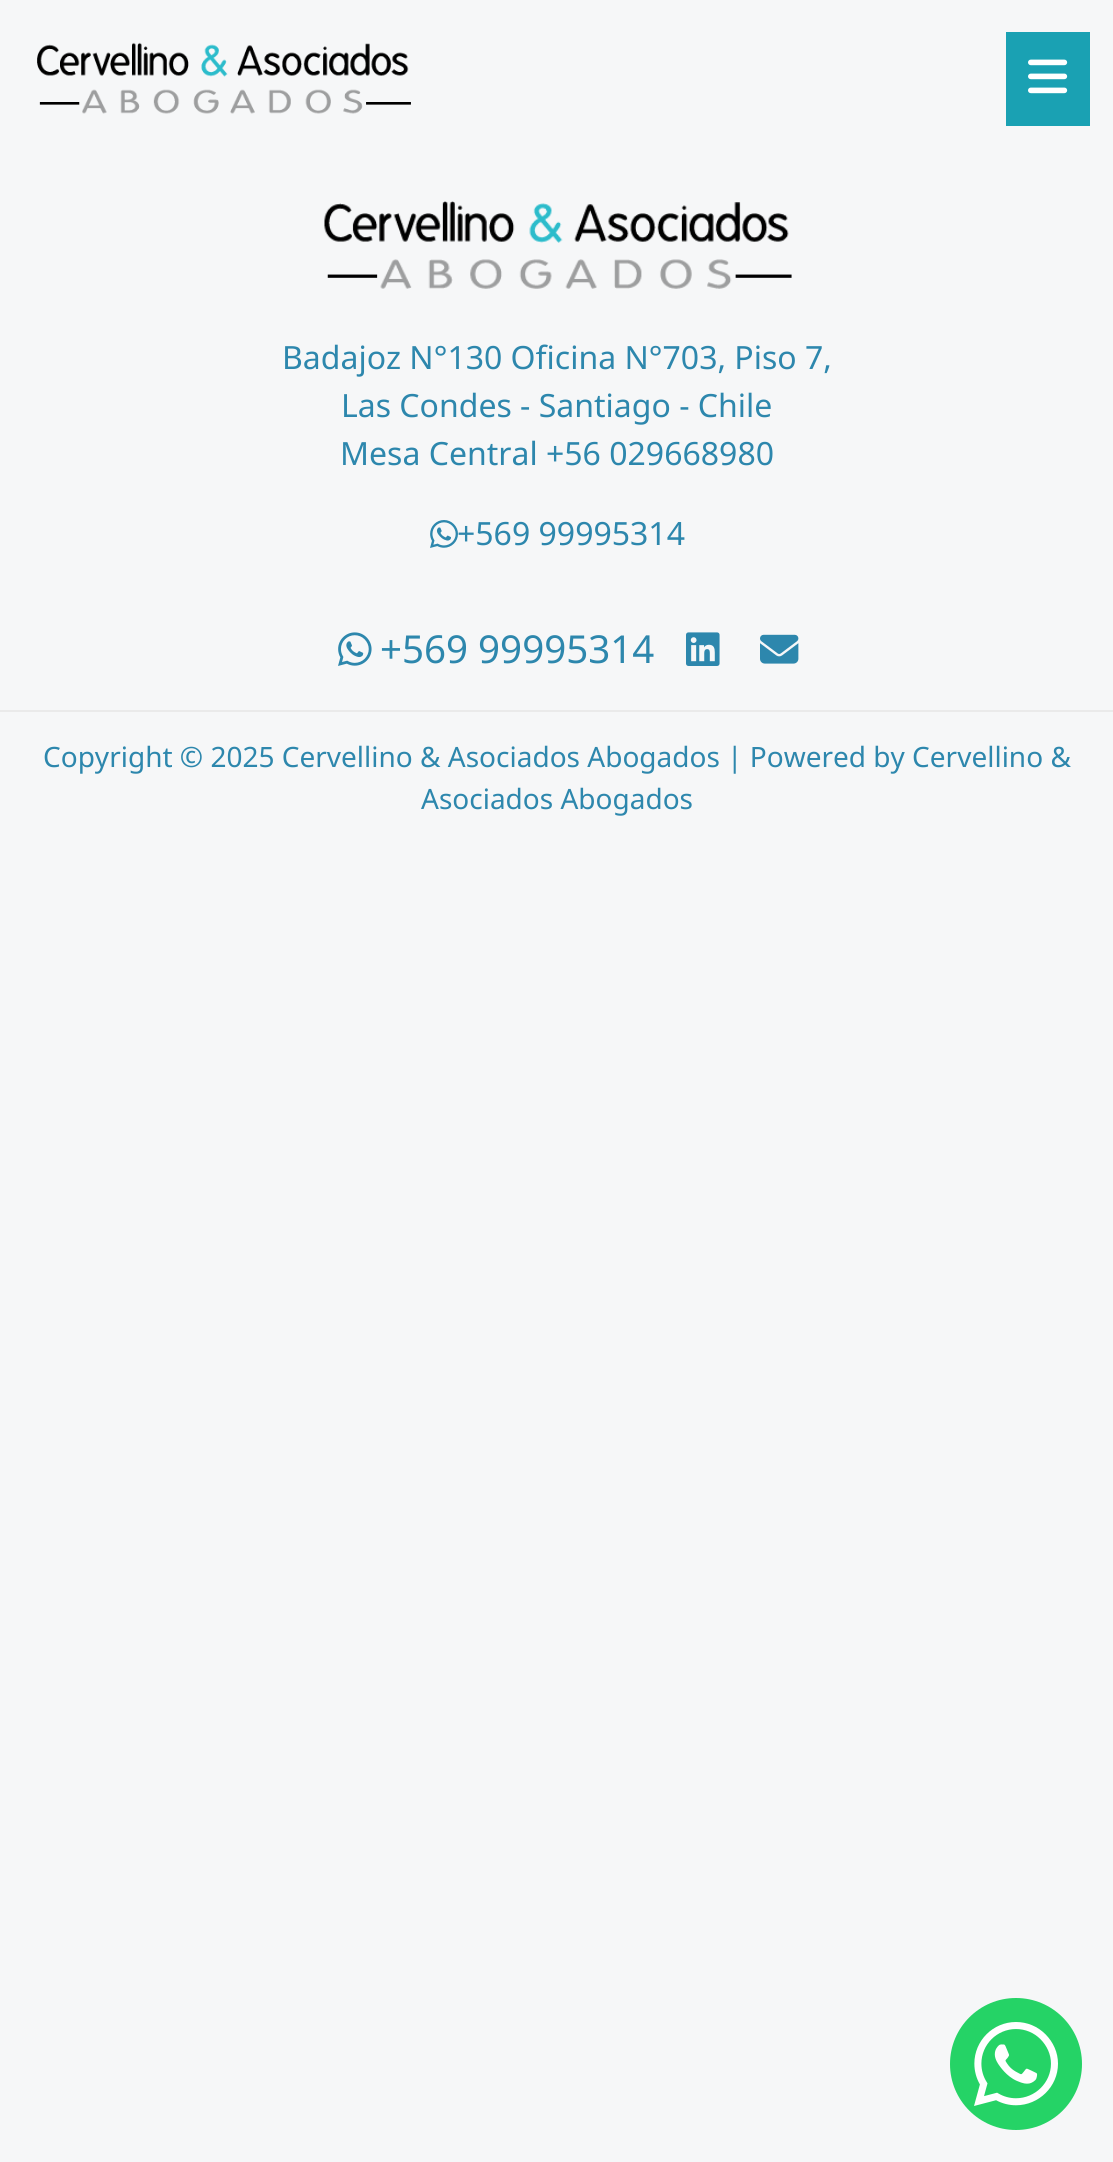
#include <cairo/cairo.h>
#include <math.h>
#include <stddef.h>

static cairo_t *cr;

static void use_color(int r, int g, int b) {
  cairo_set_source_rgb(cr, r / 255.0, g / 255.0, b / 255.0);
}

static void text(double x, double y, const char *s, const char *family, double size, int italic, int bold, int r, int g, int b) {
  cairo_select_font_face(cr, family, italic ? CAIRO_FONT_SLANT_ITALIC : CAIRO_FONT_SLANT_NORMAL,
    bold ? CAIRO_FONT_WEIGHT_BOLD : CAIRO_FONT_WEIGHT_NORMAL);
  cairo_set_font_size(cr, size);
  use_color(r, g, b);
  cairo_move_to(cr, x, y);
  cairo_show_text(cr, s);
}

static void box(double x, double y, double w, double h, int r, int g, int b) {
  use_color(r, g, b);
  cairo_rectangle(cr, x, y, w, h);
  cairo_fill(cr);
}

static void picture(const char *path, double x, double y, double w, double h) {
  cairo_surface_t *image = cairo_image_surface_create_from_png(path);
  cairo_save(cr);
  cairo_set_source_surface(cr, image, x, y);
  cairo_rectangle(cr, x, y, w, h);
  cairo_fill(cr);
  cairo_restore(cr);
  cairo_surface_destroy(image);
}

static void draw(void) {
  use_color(246, 247, 248);
  cairo_paint(cr);
  picture("img_01.png", 37, 42, 374, 72);
  box(1006, 32, 84, 94, 26, 161, 179);
  picture("img_02.png", 1028, 59, 40, 35);
  box(0, 710, 1113, 2, 234, 234, 234);
  picture("img_03.png", 324, 201, 468, 88);
  picture("img_04.png", 430, 520, 28, 28);
  picture("img_05.png", 338, 632, 34, 34);
  picture("img_06.png", 686, 632, 34, 34);
  picture("img_07.png", 760, 634, 39, 30);
  use_color(37, 211, 102);
  cairo_arc(cr, 1016, 2064, 66, 0, 2 * M_PI);
  cairo_fill(cr);
  picture("img_08.png", 974, 2022, 84, 84);
  text(282, 369, "Badajoz N°130 Oficina N°703, Piso 7,", "Noto Sans", 32, 0, 0, 45, 135, 173);
  text(341, 417, "Las Condes - Santiago - Chile", "Noto Sans", 32, 0, 0, 45, 135, 173);
  text(340, 465, "Mesa Central +56 029668980", "Noto Sans", 32, 0, 0, 45, 135, 173);
  text(457, 545, "+569 99995314", "Noto Sans", 32, 0, 0, 45, 135, 173);
  text(380, 663, "+569 99995314", "Noto Sans", 38.5, 0, 0, 45, 135, 173);
  text(43, 767, "Copyright © 2025 Cervellino & Asociados Abogados | Powered by Cervellino &", "Noto Sans", 28, 0, 0, 45, 135, 173);
  text(421, 809, "Asociados Abogados", "Noto Sans", 28, 0, 0, 45, 135, 173);
}

int main(void) {
  cairo_surface_t *surface = cairo_image_surface_create(CAIRO_FORMAT_RGB24, 1113, 2162);
  cr = cairo_create(surface);
  cairo_font_options_t *options = cairo_font_options_create();
  cairo_font_options_set_hint_metrics(options, CAIRO_HINT_METRICS_OFF);
  cairo_font_options_set_hint_style(options, CAIRO_HINT_STYLE_NONE);
  cairo_set_font_options(cr, options);
  cairo_set_miter_limit(cr, 4);
  draw();
  cairo_surface_write_to_png(surface, "out.png");
  cairo_font_options_destroy(options);
  cairo_destroy(cr);
  cairo_surface_destroy(surface);
  return 0;
}
